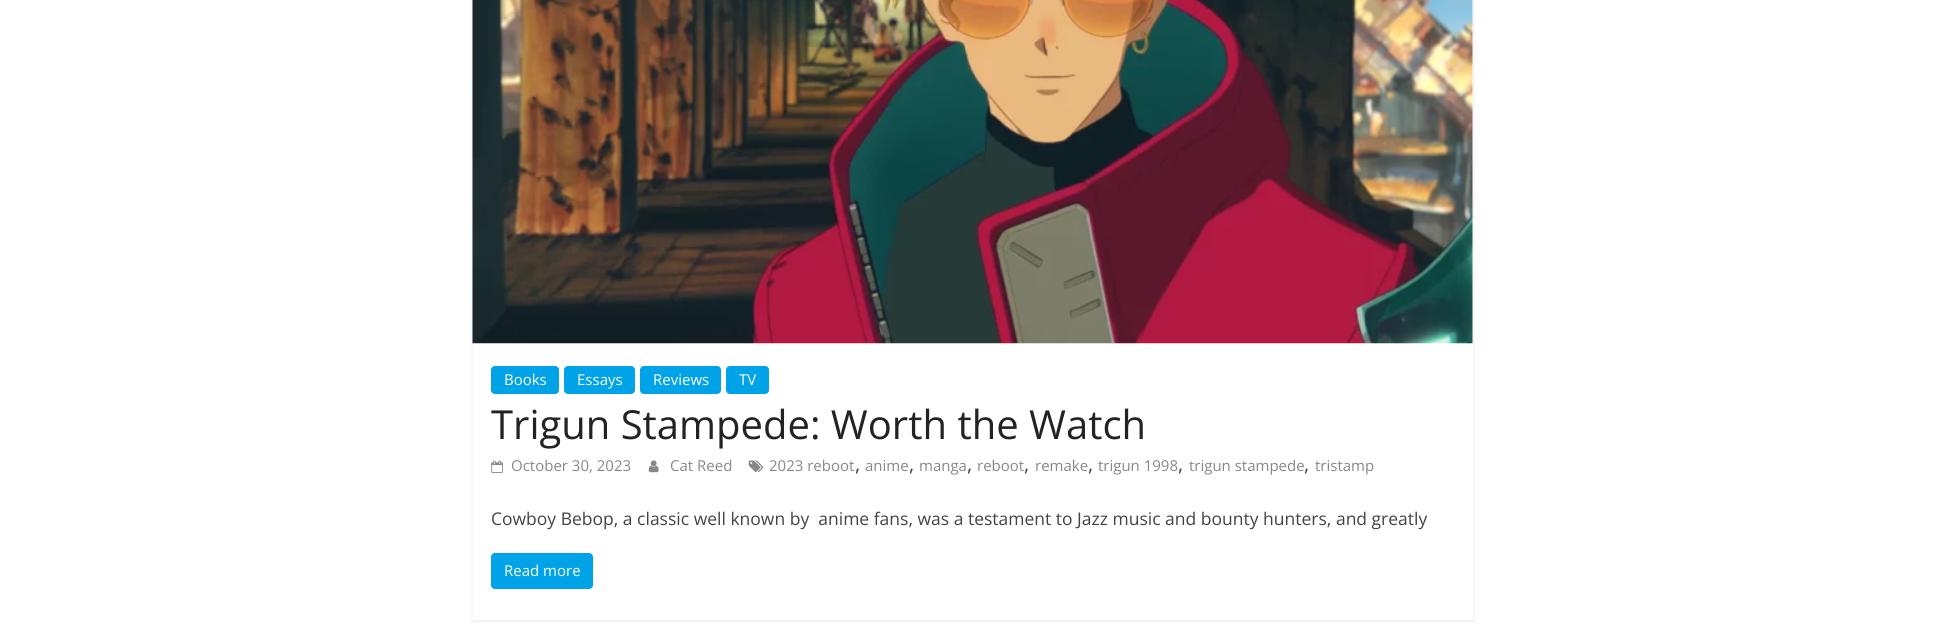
#include <cairo/cairo.h>
#include <math.h>
#include <stddef.h>

static cairo_t *cr;

static void use_color(int r, int g, int b) {
  cairo_set_source_rgb(cr, r / 255.0, g / 255.0, b / 255.0);
}

static void text(double x, double y, const char *s, const char *family, double size, int italic, int bold, int r, int g, int b) {
  cairo_select_font_face(cr, family, italic ? CAIRO_FONT_SLANT_ITALIC : CAIRO_FONT_SLANT_NORMAL,
    bold ? CAIRO_FONT_WEIGHT_BOLD : CAIRO_FONT_WEIGHT_NORMAL);
  cairo_set_font_size(cr, size);
  use_color(r, g, b);
  cairo_move_to(cr, x, y);
  cairo_show_text(cr, s);
}

static void round_rect(double x, double y, double w, double h, double r) {
  cairo_new_sub_path(cr);
  cairo_arc(cr, x + w - r, y + h - r, r, 0, M_PI / 2);
  cairo_arc(cr, x + r, y + h - r, r, M_PI / 2, M_PI);
  cairo_arc(cr, x + r, y + r, r, M_PI, 1.5 * M_PI);
  cairo_arc(cr, x + w - r, y + r, r, 1.5 * M_PI, 2 * M_PI);
  cairo_close_path(cr);
}

static void shadow(double x, double y, double w, double h, double r, double blur, double alpha) {
  cairo_push_group_with_content(cr, CAIRO_CONTENT_ALPHA);
  cairo_set_operator(cr, CAIRO_OPERATOR_SOURCE);
  for (int i = 15; i >= -15 && fmin(w, h) + blur * i / 3 > 0; i -= 2) {
    double e = blur * i / 6;
    cairo_set_source_rgba(cr, 0, 0, 0, alpha * erfc((i - 1) / 8.5) / 2);
    round_rect(x - e, y - e, w + 2 * e, h + 2 * e, fmax(0, fmin(r + e + blur * .6, fmin(w, h) / 2 + e)));
    cairo_fill(cr);
  }
  cairo_pattern_t *soft = cairo_pop_group(cr);
  cairo_mask(cr, soft);
  cairo_pattern_destroy(soft);
}

static void picture(const char *path, double x, double y, double w, double h) {
  cairo_surface_t *image = cairo_image_surface_create_from_png(path);
  cairo_save(cr);
  cairo_set_source_surface(cr, image, x, y);
  cairo_rectangle(cr, x, y, w, h);
  cairo_fill(cr);
  cairo_restore(cr);
  cairo_surface_destroy(image);
}

static void draw(void) {
  use_color(255, 255, 255);
  cairo_paint(cr);
  cairo_save(cr);
  cairo_set_fill_rule(cr, CAIRO_FILL_RULE_EVEN_ODD);
  cairo_new_path(cr);
  cairo_move_to(cr, 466, 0);
  cairo_line_to(cr, 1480, 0);
  cairo_line_to(cr, 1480, 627);
  cairo_line_to(cr, 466, 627);
  cairo_close_path(cr);
  cairo_move_to(cr, 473, -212);
  cairo_line_to(cr, 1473, -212);
  cairo_line_to(cr, 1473, 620);
  cairo_line_to(cr, 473, 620);
  cairo_close_path(cr);
  cairo_clip(cr);
  use_color(0, 0, 0);
  shadow(473, -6, 1000, 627, 0, 2, 0.1);
  cairo_restore(cr);
  picture("img_01.png", 472, 0, 1001, 344);
  use_color(0, 162, 232);
  round_rect(491, 366, 68, 28, 4);
  cairo_fill(cr);
  round_rect(564, 366, 71, 28, 4);
  cairo_fill(cr);
  round_rect(640, 366, 81, 28, 4);
  cairo_fill(cr);
  round_rect(726, 366, 43, 28, 4);
  cairo_fill(cr);
  picture("img_02.png", 491, 460, 12, 14);
  picture("img_03.png", 648, 460, 11, 13);
  picture("img_04.png", 748, 460, 16, 12);
  round_rect(491, 553, 102, 36, 4);
  cairo_fill(cr);
  text(504, 385, "Books", "Open Sans", 15, 0, 0, 255, 255, 255);
  text(577, 385, "Essays", "Open Sans", 15, 0, 0, 255, 255, 255);
  text(653, 385, "Reviews", "Open Sans", 15, 0, 0, 255, 255, 255);
  text(739, 385, "TV", "Open Sans", 15, 0, 0, 255, 255, 255);
  text(491, 439, "Trigun Stampede: Worth the Watch", "Open Sans", 40, 0, 0, 35, 35, 35);
  text(511, 471, "October 30, 2023", "Open Sans", 15, 0, 0, 136, 136, 136);
  text(670, 471, "Cat Reed", "Open Sans", 15, 0, 0, 136, 136, 136);
  text(769, 471, "2023 reboot", "Open Sans", 15, 0, 0, 136, 136, 136);
  text(855, 471, ",", "Open Sans", 20, 0, 0, 68, 68, 68);
  text(865, 471, "anime", "Open Sans", 15, 0, 0, 136, 136, 136);
  text(909, 471, ",", "Open Sans", 20, 0, 0, 68, 68, 68);
  text(919, 471, "manga", "Open Sans", 15, 0, 0, 136, 136, 136);
  text(967, 471, ",", "Open Sans", 20, 0, 0, 68, 68, 68);
  text(977, 471, "reboot", "Open Sans", 15, 0, 0, 136, 136, 136);
  text(1024, 471, ",", "Open Sans", 20, 0, 0, 68, 68, 68);
  text(1035, 471, "remake", "Open Sans", 15, 0, 0, 136, 136, 136);
  text(1088, 471, ",", "Open Sans", 20, 0, 0, 68, 68, 68);
  text(1098, 471, "trigun 1998", "Open Sans", 15, 0, 0, 136, 136, 136);
  text(1178, 471, ",", "Open Sans", 20, 0, 0, 68, 68, 68);
  text(1189, 471, "trigun stampede", "Open Sans", 15, 0, 0, 136, 136, 136);
  text(1304, 471, ",", "Open Sans", 20, 0, 0, 68, 68, 68);
  text(1315, 471, "tristamp", "Open Sans", 15, 0, 0, 136, 136, 136);
  text(491, 525, "Cowboy Bebop, a classic well known by  anime fans, was a testament to Jazz music and bounty hunters, and greatly", "Open Sans", 17.5, 0, 0, 68, 68, 68);
  text(504, 576, "Read more", "Open Sans", 15, 0, 0, 255, 255, 255);
}

int main(void) {
  cairo_surface_t *surface = cairo_image_surface_create(CAIRO_FORMAT_RGB24, 1944, 627);
  cr = cairo_create(surface);
  cairo_font_options_t *options = cairo_font_options_create();
  cairo_font_options_set_hint_metrics(options, CAIRO_HINT_METRICS_OFF);
  cairo_font_options_set_hint_style(options, CAIRO_HINT_STYLE_NONE);
  cairo_set_font_options(cr, options);
  cairo_set_miter_limit(cr, 4);
  draw();
  cairo_surface_write_to_png(surface, "out.png");
  cairo_font_options_destroy(options);
  cairo_destroy(cr);
  cairo_surface_destroy(surface);
  return 0;
}
